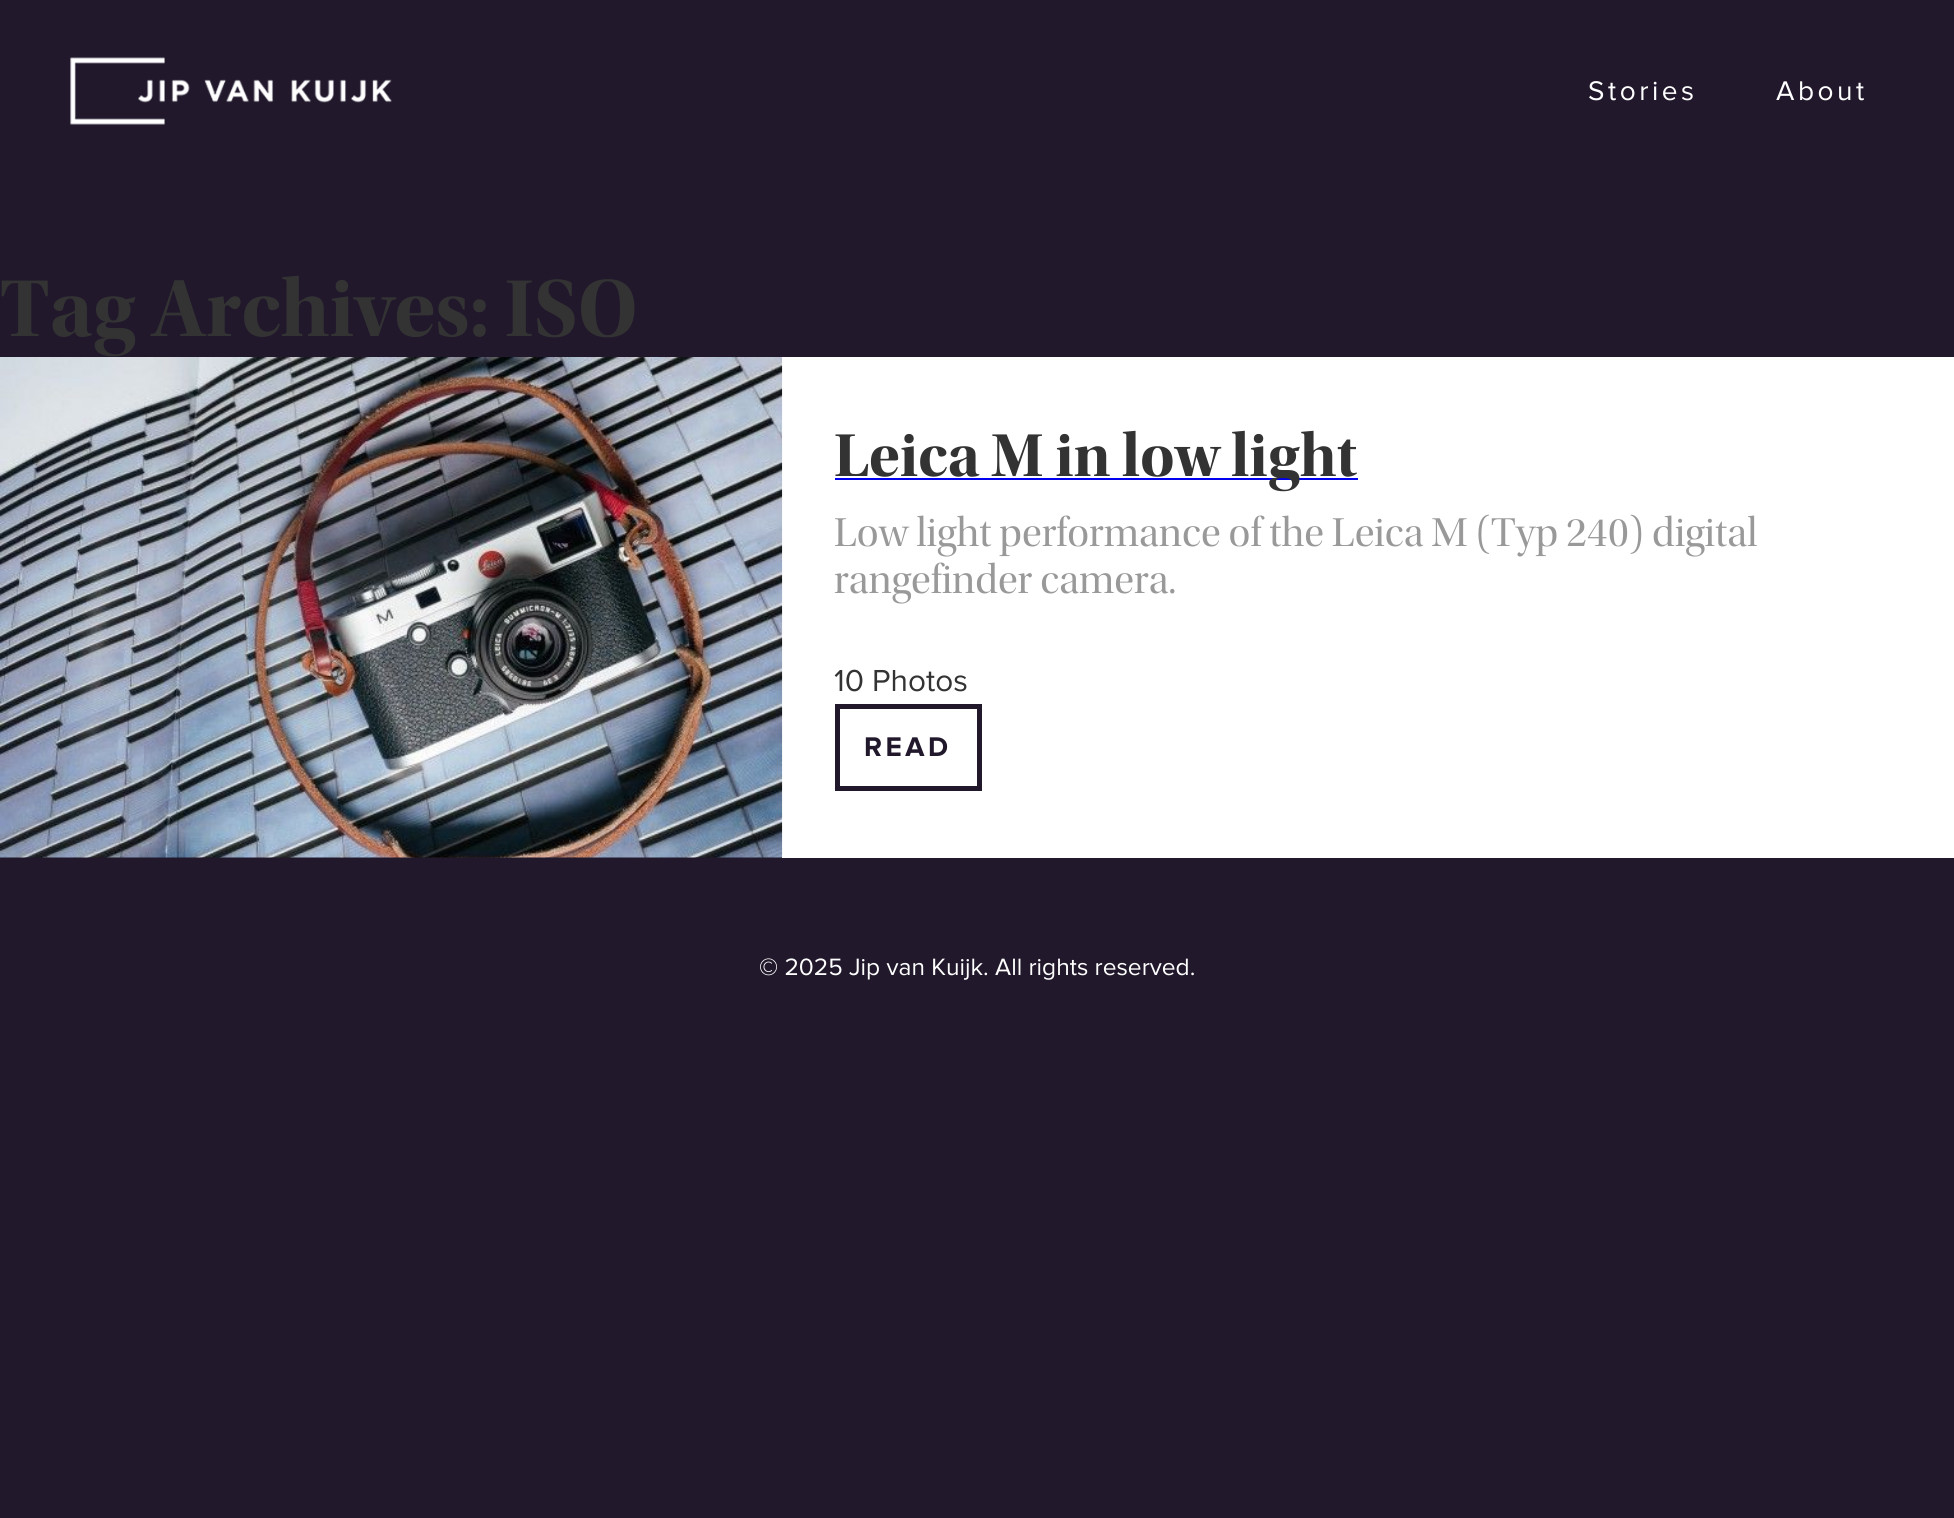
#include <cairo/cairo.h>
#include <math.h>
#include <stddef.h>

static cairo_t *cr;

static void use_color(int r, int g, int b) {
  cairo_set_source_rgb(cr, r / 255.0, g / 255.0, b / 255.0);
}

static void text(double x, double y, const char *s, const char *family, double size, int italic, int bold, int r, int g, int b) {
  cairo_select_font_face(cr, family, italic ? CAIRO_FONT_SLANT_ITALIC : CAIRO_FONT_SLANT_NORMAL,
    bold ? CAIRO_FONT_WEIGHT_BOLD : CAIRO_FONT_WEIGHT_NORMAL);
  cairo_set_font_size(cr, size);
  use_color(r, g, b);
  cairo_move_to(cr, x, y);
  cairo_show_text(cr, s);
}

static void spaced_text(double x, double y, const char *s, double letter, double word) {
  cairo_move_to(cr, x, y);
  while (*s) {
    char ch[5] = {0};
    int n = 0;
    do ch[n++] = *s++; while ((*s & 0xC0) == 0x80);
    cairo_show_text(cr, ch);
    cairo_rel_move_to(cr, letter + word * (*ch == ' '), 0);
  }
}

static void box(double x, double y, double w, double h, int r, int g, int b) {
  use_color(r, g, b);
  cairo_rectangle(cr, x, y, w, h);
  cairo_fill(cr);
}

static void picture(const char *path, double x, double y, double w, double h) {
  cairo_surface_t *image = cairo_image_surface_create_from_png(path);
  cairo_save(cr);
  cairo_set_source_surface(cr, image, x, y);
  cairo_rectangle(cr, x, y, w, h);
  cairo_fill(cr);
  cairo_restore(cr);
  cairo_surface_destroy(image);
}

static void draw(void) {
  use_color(33, 24, 44);
  cairo_paint(cr);
  picture("img_01.png", 70, 57, 322, 68);
  box(782, 357, 1172, 501, 255, 255, 255);
  picture("img_02.png", 0, 357, 783, 501);
  box(835, 478, 523, 2, 0, 0, 238);
  cairo_rectangle(cr, 837.5, 706.5, 142, 82);
  use_color(33, 24, 44);
  cairo_set_line_width(cr, 5);
  cairo_stroke(cr);
  cairo_select_font_face(cr, "Proxima Nova", CAIRO_FONT_SLANT_NORMAL, CAIRO_FONT_WEIGHT_NORMAL);
  cairo_set_font_size(cr, 28);
  use_color(255, 255, 255);
  spaced_text(1588, 100, "Stories", 3.5, 0);
  spaced_text(1776, 100, "About", 3.5, 0);
  text(0, 336, "Tag Archives: ISO", "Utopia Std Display", 84, 0, 1, 51, 51, 51);
  text(834, 476, "Leica M in low light", "Utopia Std Display", 63, 0, 1, 51, 51, 51);
  text(834, 546, "Low light performance of the Leica M (Typ 240) digital", "Utopia Std Display", 42, 0, 0, 153, 153, 153);
  text(834, 593, "rangefinder camera.", "Utopia Std Display", 42, 0, 0, 153, 153, 153);
  text(834, 691, "10 Photos", "Proxima Nova", 31.5, 0, 0, 51, 51, 51);
  cairo_select_font_face(cr, "Proxima Nova", CAIRO_FONT_SLANT_NORMAL, CAIRO_FONT_WEIGHT_BOLD);
  cairo_set_font_size(cr, 28);
  use_color(33, 24, 44);
  spaced_text(864, 756, "READ", 3.5, 0);
  text(759, 975, "© 2025 Jip van Kuijk. All rights reserved.", "Proxima Nova", 24.5, 0, 0, 255, 255, 255);
}

int main(void) {
  cairo_surface_t *surface = cairo_image_surface_create(CAIRO_FORMAT_RGB24, 1954, 1518);
  cr = cairo_create(surface);
  cairo_font_options_t *options = cairo_font_options_create();
  cairo_font_options_set_hint_metrics(options, CAIRO_HINT_METRICS_OFF);
  cairo_font_options_set_hint_style(options, CAIRO_HINT_STYLE_NONE);
  cairo_set_font_options(cr, options);
  cairo_set_miter_limit(cr, 4);
  draw();
  cairo_surface_write_to_png(surface, "out.png");
  cairo_font_options_destroy(options);
  cairo_destroy(cr);
  cairo_surface_destroy(surface);
  return 0;
}
